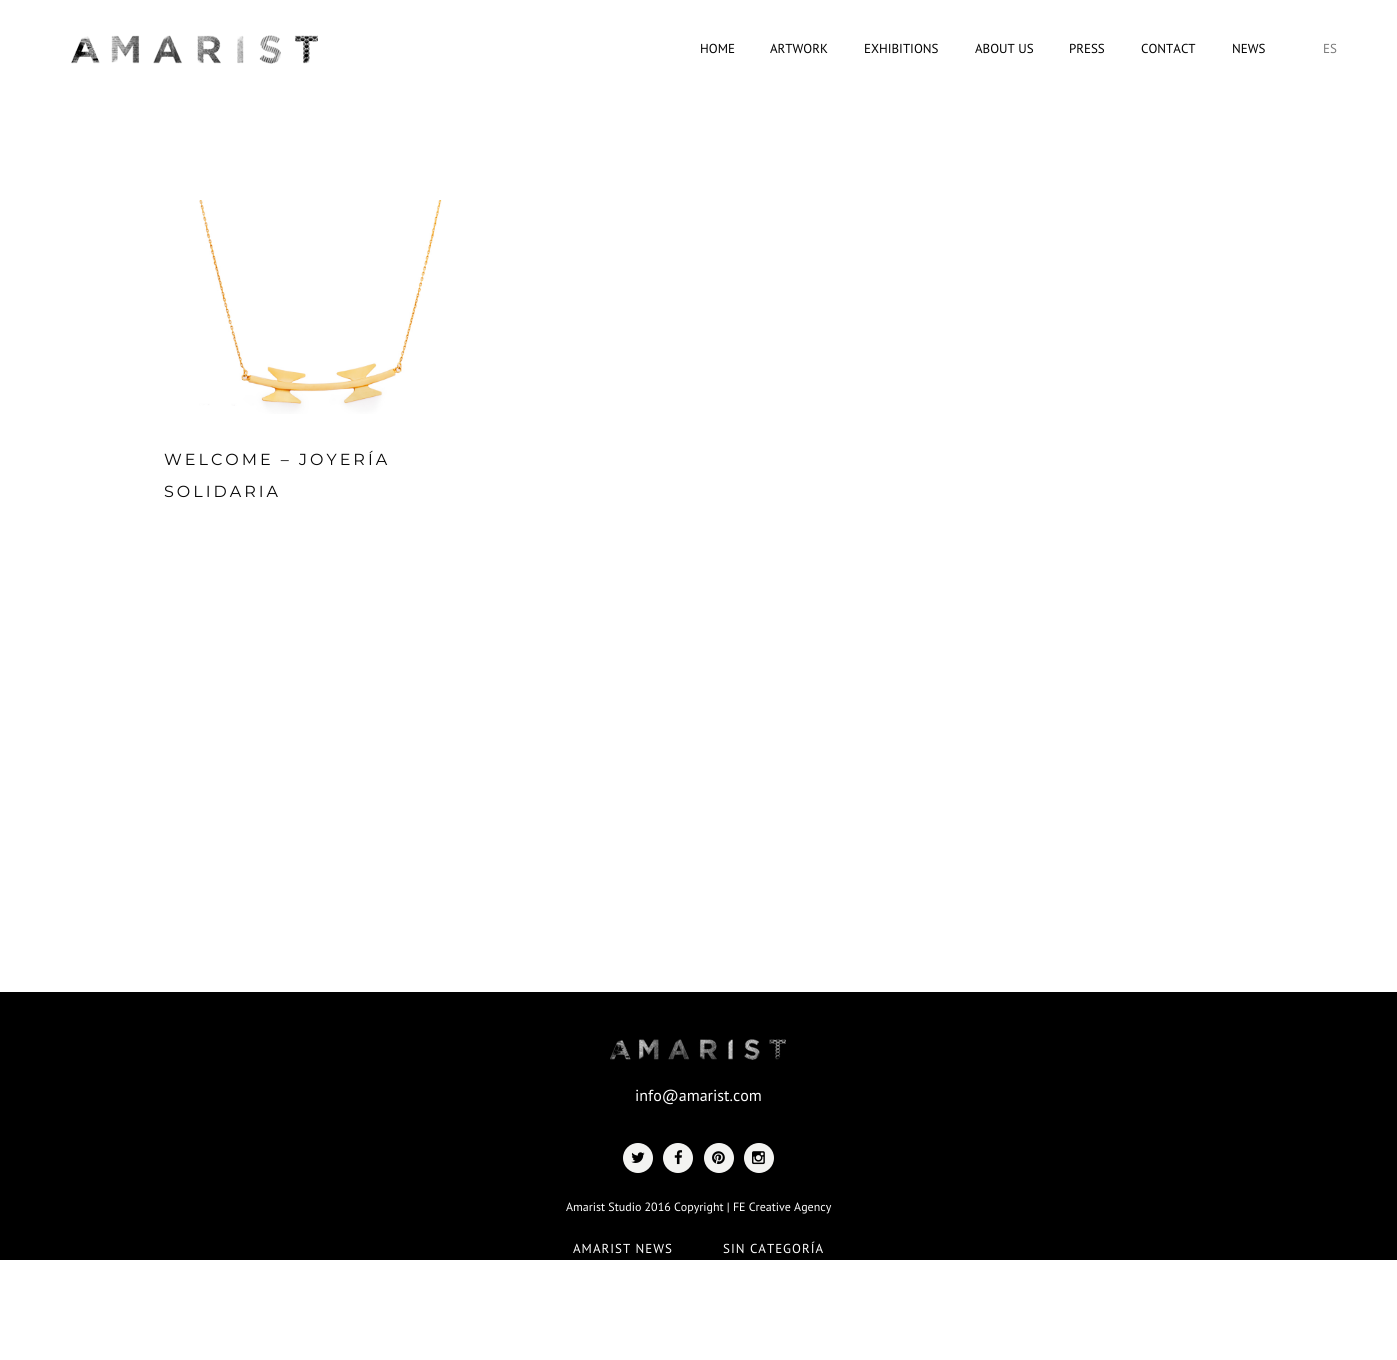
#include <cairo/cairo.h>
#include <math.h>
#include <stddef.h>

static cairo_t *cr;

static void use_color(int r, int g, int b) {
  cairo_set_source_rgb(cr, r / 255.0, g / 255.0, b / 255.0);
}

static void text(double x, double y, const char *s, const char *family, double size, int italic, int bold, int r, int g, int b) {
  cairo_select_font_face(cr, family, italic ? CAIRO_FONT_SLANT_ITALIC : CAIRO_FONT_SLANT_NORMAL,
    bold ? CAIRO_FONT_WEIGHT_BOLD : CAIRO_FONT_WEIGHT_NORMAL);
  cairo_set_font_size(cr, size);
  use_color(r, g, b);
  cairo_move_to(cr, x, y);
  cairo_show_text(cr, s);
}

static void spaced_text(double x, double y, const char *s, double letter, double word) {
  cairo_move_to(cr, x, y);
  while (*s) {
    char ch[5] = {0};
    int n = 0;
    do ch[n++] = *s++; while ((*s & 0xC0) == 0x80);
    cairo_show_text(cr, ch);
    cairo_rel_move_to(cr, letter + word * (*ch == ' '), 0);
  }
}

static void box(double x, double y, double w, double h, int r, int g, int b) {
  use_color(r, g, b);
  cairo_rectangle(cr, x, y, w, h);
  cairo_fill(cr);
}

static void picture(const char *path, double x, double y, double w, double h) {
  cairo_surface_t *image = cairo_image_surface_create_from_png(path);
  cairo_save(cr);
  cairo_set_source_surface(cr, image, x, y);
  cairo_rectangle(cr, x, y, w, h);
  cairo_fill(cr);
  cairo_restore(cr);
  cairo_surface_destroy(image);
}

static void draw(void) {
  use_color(255, 255, 255);
  cairo_paint(cr);
  picture("img_01.png", 71, 35, 247, 29);
  picture("img_02.png", 199, 200, 243, 214);
  box(0, 992, 1397, 268, 0, 0, 0);
  picture("img_03.png", 610, 1039, 176, 21);
  use_color(243, 243, 241);
  cairo_arc(cr, 638, 1158, 15, 0, 2 * M_PI);
  cairo_fill(cr);
  picture("img_04.png", 631, 1152, 14, 11);
  cairo_arc(cr, 678, 1158, 15, 0, 2 * M_PI);
  cairo_fill(cr);
  picture("img_05.png", 674, 1150, 9, 15);
  cairo_arc(cr, 719, 1158, 15, 0, 2 * M_PI);
  cairo_fill(cr);
  picture("img_06.png", 712, 1151, 13, 14);
  cairo_arc(cr, 759, 1158, 15, 0, 2 * M_PI);
  cairo_fill(cr);
  picture("img_07.png", 752, 1151, 13, 14);
  text(700, 53, "HOME", "PT Sans", 13, 0, 0, 0, 0, 0);
  text(770, 53, "ARTWORK", "PT Sans", 13, 0, 0, 0, 0, 0);
  text(864, 53, "EXHIBITIONS", "PT Sans", 13, 0, 0, 0, 0, 0);
  text(975, 53, "ABOUT US", "PT Sans", 13, 0, 0, 0, 0, 0);
  text(1069, 53, "PRESS", "PT Sans", 13, 0, 0, 0, 0, 0);
  text(1141, 53, "CONTACT", "PT Sans", 13, 0, 0, 0, 0, 0);
  text(1232, 53, "NEWS", "PT Sans", 13, 0, 0, 0, 0, 0);
  text(1323, 53, "ES", "PT Sans", 13, 0, 0, 122, 122, 122);
  cairo_select_font_face(cr, "Montserrat", CAIRO_FONT_SLANT_NORMAL, CAIRO_FONT_WEIGHT_NORMAL);
  cairo_set_font_size(cr, 16);
  use_color(8, 8, 8);
  spaced_text(164, 465, "WELCOME – JOYERÍA", 3, 0);
  spaced_text(164, 497, "SOLIDARIA", 3, 0);
  text(635, 1101, "info@amarist.com", "PT Sans", 16, 0, 0, 255, 255, 255);
  text(566, 1211, "Amarist Studio 2016 Copyright | FE Creative Agency", "PT Sans", 12, 0, 0, 255, 255, 255);
  cairo_set_font_size(cr, 13);
  spaced_text(573, 1253, "AMARIST NEWS", 1, 0);
  spaced_text(723, 1253, "SIN CATEGORÍA", 1, 0);
}

int main(void) {
  cairo_surface_t *surface = cairo_image_surface_create(CAIRO_FORMAT_RGB24, 1397, 1360);
  cr = cairo_create(surface);
  cairo_font_options_t *options = cairo_font_options_create();
  cairo_font_options_set_hint_metrics(options, CAIRO_HINT_METRICS_OFF);
  cairo_font_options_set_hint_style(options, CAIRO_HINT_STYLE_NONE);
  cairo_set_font_options(cr, options);
  cairo_set_miter_limit(cr, 4);
  draw();
  cairo_surface_write_to_png(surface, "out.png");
  cairo_font_options_destroy(options);
  cairo_destroy(cr);
  cairo_surface_destroy(surface);
  return 0;
}
